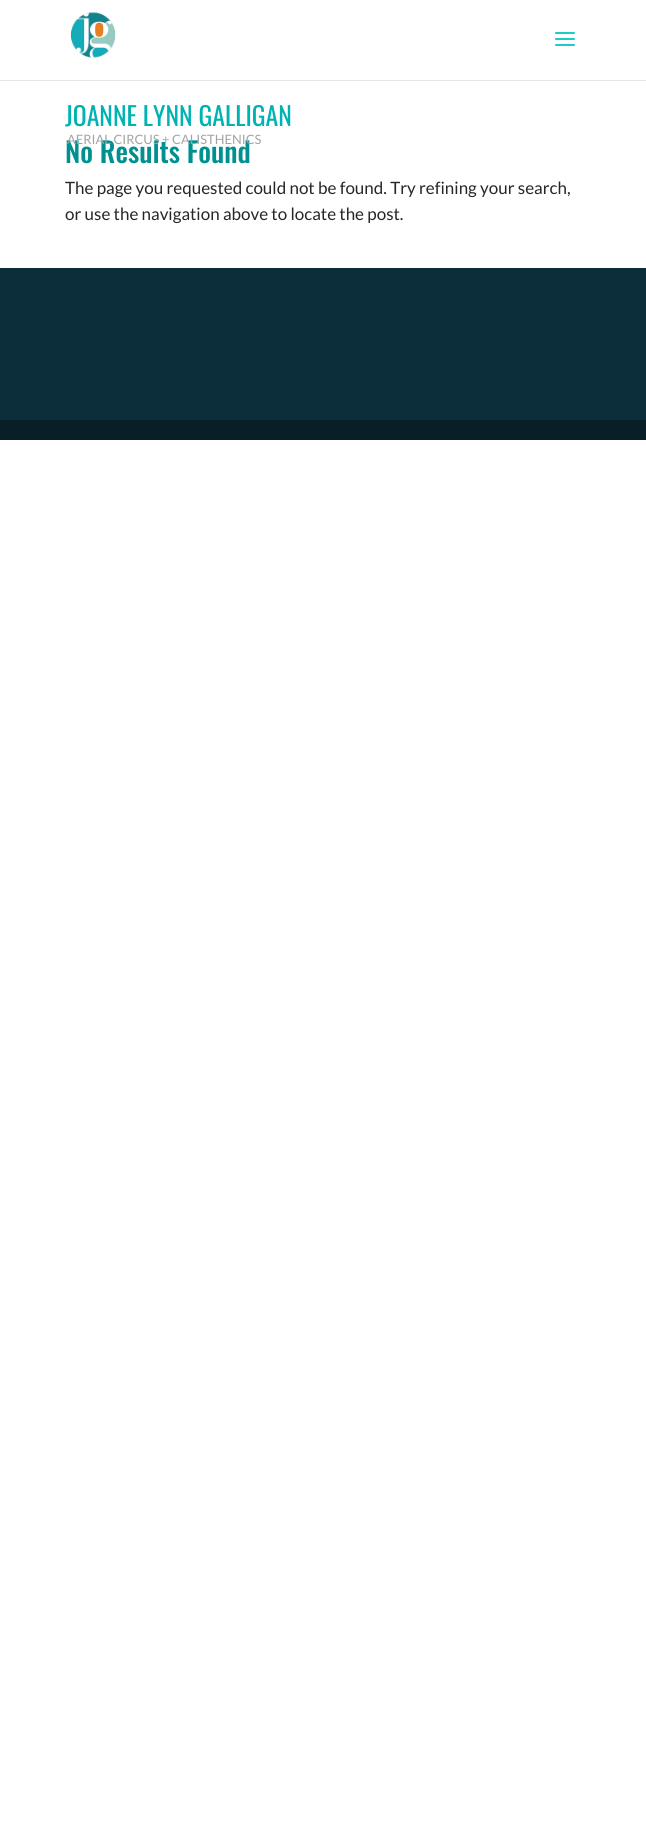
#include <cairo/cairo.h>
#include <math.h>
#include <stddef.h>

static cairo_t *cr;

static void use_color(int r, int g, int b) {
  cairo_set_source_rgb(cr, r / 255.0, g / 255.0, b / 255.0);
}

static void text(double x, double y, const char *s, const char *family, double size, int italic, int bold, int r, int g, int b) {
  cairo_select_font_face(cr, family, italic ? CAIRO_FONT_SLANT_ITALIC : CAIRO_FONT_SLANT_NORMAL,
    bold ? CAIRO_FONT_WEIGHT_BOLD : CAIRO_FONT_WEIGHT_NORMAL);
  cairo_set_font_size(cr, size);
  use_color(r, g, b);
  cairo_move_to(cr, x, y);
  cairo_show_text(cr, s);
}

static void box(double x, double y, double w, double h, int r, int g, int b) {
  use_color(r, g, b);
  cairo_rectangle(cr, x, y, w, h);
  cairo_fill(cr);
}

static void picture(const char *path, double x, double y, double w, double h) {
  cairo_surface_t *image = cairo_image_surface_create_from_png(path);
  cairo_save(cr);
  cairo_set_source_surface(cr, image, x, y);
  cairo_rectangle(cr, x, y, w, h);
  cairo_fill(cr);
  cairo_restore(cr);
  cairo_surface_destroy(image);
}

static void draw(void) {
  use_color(255, 255, 255);
  cairo_paint(cr);
  box(0, 80, 646, 1, 230, 230, 230);
  picture("img_01.png", 555, 32, 20, 14);
  picture("img_02.png", 70, 12, 46, 46);
  box(0, 268, 646, 152, 12, 46, 58);
  box(0, 420, 646, 20, 8, 31, 39);
  cairo_save(cr);
  cairo_rectangle(cr, 65, 100, 300, 57);
  cairo_clip(cr);
  text(65, 126, "JOANNE LYNN GALLIGAN", "Oswald", 25.75, 0, 0, 0, 178, 178);
  cairo_restore(cr);
  text(65, 163, "No Results Found", "Oswald Medium", 28, 0, 0, 0, 144, 144);
  text(67, 144, "AERIAL CIRCUS + CALISTHENICS", "Lato", 12.9, 0, 0, 161, 164, 164);
  text(65, 194, "The page you requested could not be found. Try refining your search,", "Lato", 17, 0, 0, 38, 38, 38);
  text(65, 220, "or use the navigation above to locate the post.", "Lato", 17, 0, 0, 38, 38, 38);
}

int main(void) {
  cairo_surface_t *surface = cairo_image_surface_create(CAIRO_FORMAT_RGB24, 646, 1827);
  cr = cairo_create(surface);
  cairo_font_options_t *options = cairo_font_options_create();
  cairo_font_options_set_hint_metrics(options, CAIRO_HINT_METRICS_OFF);
  cairo_font_options_set_hint_style(options, CAIRO_HINT_STYLE_NONE);
  cairo_set_font_options(cr, options);
  cairo_set_miter_limit(cr, 4);
  draw();
  cairo_surface_write_to_png(surface, "out.png");
  cairo_font_options_destroy(options);
  cairo_destroy(cr);
  cairo_surface_destroy(surface);
  return 0;
}
